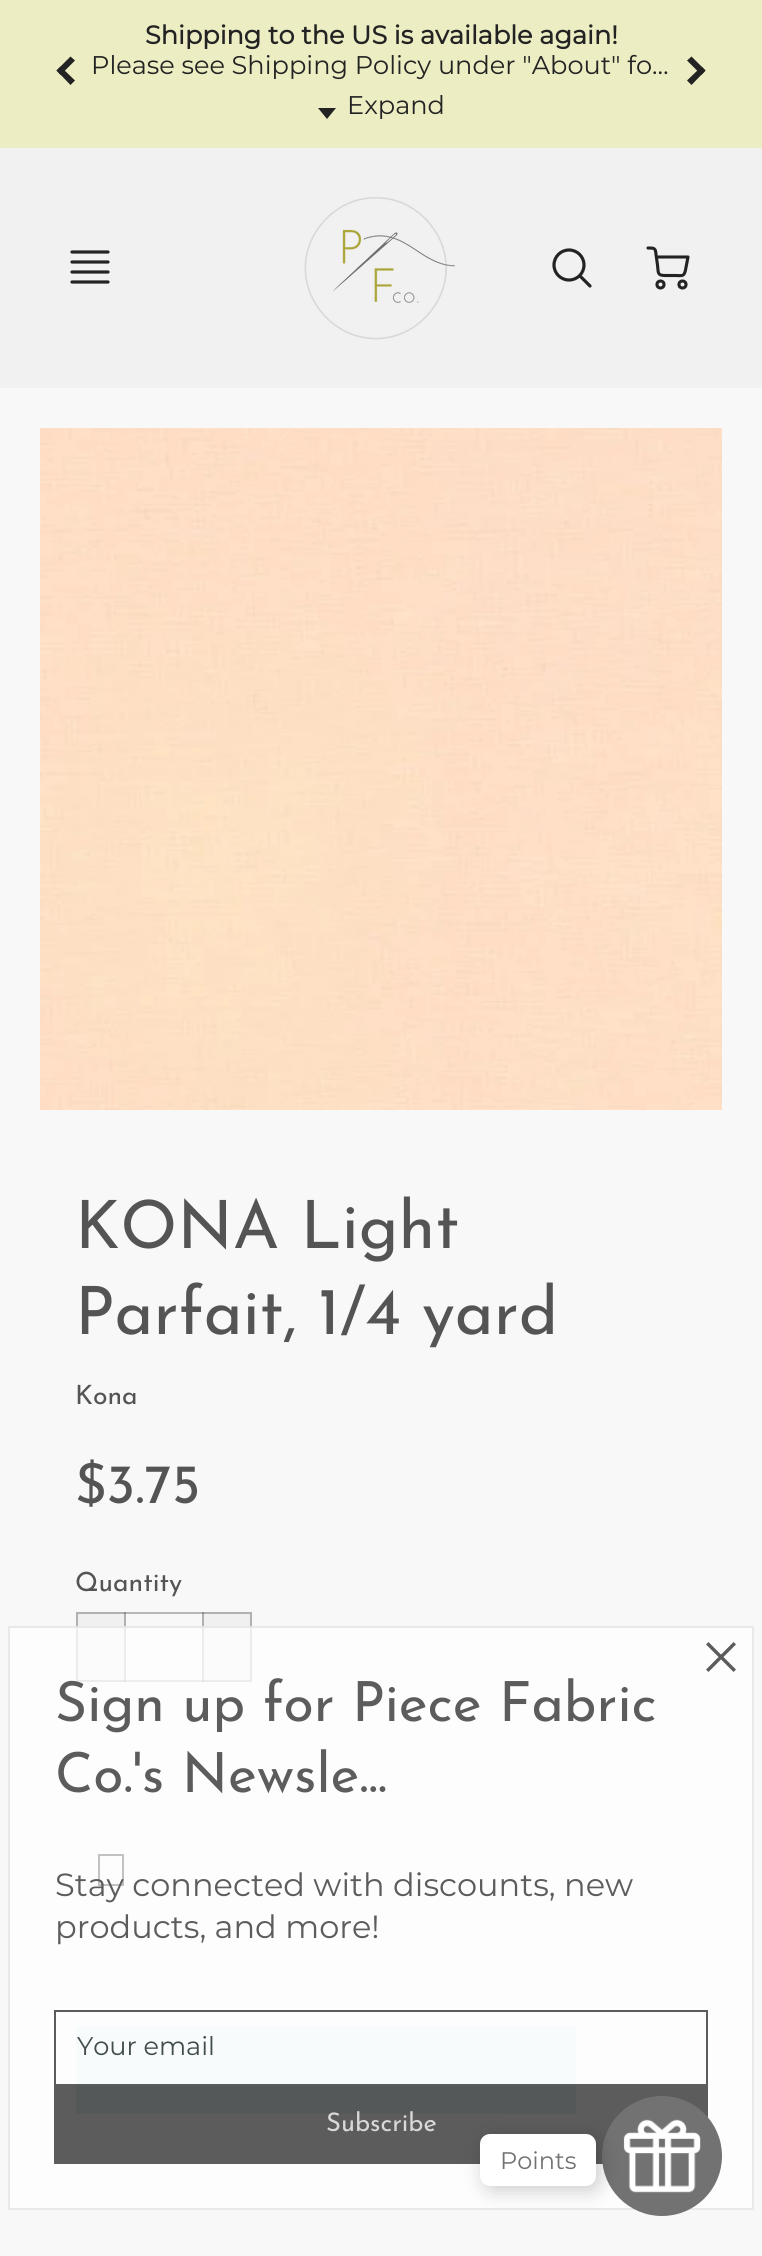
#include <cairo/cairo.h>
#include <math.h>
#include <stddef.h>

static cairo_t *cr;

static void use_color(int r, int g, int b) {
  cairo_set_source_rgb(cr, r / 255.0, g / 255.0, b / 255.0);
}

static void text(double x, double y, const char *s, const char *family, double size, int italic, int bold, int r, int g, int b) {
  cairo_select_font_face(cr, family, italic ? CAIRO_FONT_SLANT_ITALIC : CAIRO_FONT_SLANT_NORMAL,
    bold ? CAIRO_FONT_WEIGHT_BOLD : CAIRO_FONT_WEIGHT_NORMAL);
  cairo_set_font_size(cr, size);
  use_color(r, g, b);
  cairo_move_to(cr, x, y);
  cairo_show_text(cr, s);
}

static void box(double x, double y, double w, double h, int r, int g, int b) {
  use_color(r, g, b);
  cairo_rectangle(cr, x, y, w, h);
  cairo_fill(cr);
}

static void round_rect(double x, double y, double w, double h, double r) {
  cairo_new_sub_path(cr);
  cairo_arc(cr, x + w - r, y + h - r, r, 0, M_PI / 2);
  cairo_arc(cr, x + r, y + h - r, r, M_PI / 2, M_PI);
  cairo_arc(cr, x + r, y + r, r, M_PI, 1.5 * M_PI);
  cairo_arc(cr, x + w - r, y + r, r, 1.5 * M_PI, 2 * M_PI);
  cairo_close_path(cr);
}

static void shadow(double x, double y, double w, double h, double r, double blur, double alpha) {
  cairo_push_group_with_content(cr, CAIRO_CONTENT_ALPHA);
  cairo_set_operator(cr, CAIRO_OPERATOR_SOURCE);
  for (int i = 15; i >= -15 && fmin(w, h) + blur * i / 3 > 0; i -= 2) {
    double e = blur * i / 6;
    cairo_set_source_rgba(cr, 0, 0, 0, alpha * erfc((i - 1) / 8.5) / 2);
    round_rect(x - e, y - e, w + 2 * e, h + 2 * e, fmax(0, fmin(r + e + blur * .6, fmin(w, h) / 2 + e)));
    cairo_fill(cr);
  }
  cairo_pattern_t *soft = cairo_pop_group(cr);
  cairo_mask(cr, soft);
  cairo_pattern_destroy(soft);
}

static void picture(const char *path, double x, double y, double w, double h) {
  cairo_surface_t *image = cairo_image_surface_create_from_png(path);
  cairo_save(cr);
  cairo_set_source_surface(cr, image, x, y);
  cairo_rectangle(cr, x, y, w, h);
  cairo_fill(cr);
  cairo_restore(cr);
  cairo_surface_destroy(image);
}

static void draw(void) {
  use_color(248, 248, 248);
  cairo_paint(cr);
  box(202, 1612, 50, 70, 240, 240, 240);
  box(76, 1612, 50, 70, 240, 240, 240);
  box(0, 0, 762, 148, 237, 237, 196);
  use_color(35, 35, 35);
  cairo_new_path(cr);
  cairo_move_to(cr, 70.5, 85);
  cairo_line_to(cr, 56.5, 70.5);
  cairo_line_to(cr, 60.5, 66.5);
  cairo_line_to(cr, 75, 80.5);
  cairo_close_path(cr);
  cairo_fill(cr);
  cairo_new_path(cr);
  cairo_move_to(cr, 60.5, 75);
  cairo_line_to(cr, 56.5, 70.5);
  cairo_line_to(cr, 70.5, 56.5);
  cairo_line_to(cr, 75, 60.5);
  cairo_close_path(cr);
  cairo_fill(cr);
  cairo_new_path(cr);
  cairo_move_to(cr, 318, 108);
  cairo_line_to(cr, 327, 119);
  cairo_line_to(cr, 336, 108);
  cairo_close_path(cr);
  cairo_fill(cr);
  cairo_new_path(cr);
  cairo_move_to(cr, 691.5, 56.5);
  cairo_line_to(cr, 705.5, 70.5);
  cairo_line_to(cr, 701.5, 75);
  cairo_line_to(cr, 687, 60.5);
  cairo_close_path(cr);
  cairo_fill(cr);
  cairo_new_path(cr);
  cairo_move_to(cr, 701.5, 66.5);
  cairo_line_to(cr, 705.5, 70.5);
  cairo_line_to(cr, 691.5, 85);
  cairo_line_to(cr, 687, 80.5);
  cairo_close_path(cr);
  cairo_fill(cr);
  box(0, 148, 762, 240, 241, 241, 241);
  cairo_new_path(cr);
  cairo_move_to(cr, 108, 272);
  cairo_line_to(cr, 72, 272);
  cairo_move_to(cr, 108, 282);
  cairo_line_to(cr, 72, 282);
  cairo_move_to(cr, 108, 252);
  cairo_line_to(cr, 72, 252);
  cairo_move_to(cr, 108, 262);
  cairo_line_to(cr, 72, 262);
  use_color(35, 35, 35);
  cairo_set_line_width(cr, 3.2);
  cairo_set_line_cap(cr, CAIRO_LINE_CAP_ROUND);
  cairo_set_line_join(cr, CAIRO_LINE_JOIN_ROUND);
  cairo_stroke(cr);
  picture("img_01.png", 304, 197, 151, 143);
  cairo_arc(cr, 569, 265, 15, 0, 2 * M_PI);
  cairo_set_line_cap(cr, CAIRO_LINE_CAP_BUTT);
  cairo_set_line_join(cr, CAIRO_LINE_JOIN_MITER);
  cairo_stroke(cr);
  cairo_new_path(cr);
  cairo_move_to(cr, 590, 286);
  cairo_line_to(cr, 580, 276);
  cairo_set_line_cap(cr, CAIRO_LINE_CAP_ROUND);
  cairo_set_line_join(cr, CAIRO_LINE_JOIN_ROUND);
  cairo_stroke(cr);
  cairo_arc(cr, 660.5, 284.5, 3.5, 0, 2 * M_PI);
  cairo_set_line_width(cr, 3.1);
  cairo_set_line_cap(cr, CAIRO_LINE_CAP_BUTT);
  cairo_set_line_join(cr, CAIRO_LINE_JOIN_MITER);
  cairo_stroke(cr);
  cairo_arc(cr, 682.5, 284.5, 3.5, 0, 2 * M_PI);
  cairo_stroke(cr);
  cairo_new_path(cr);
  cairo_move_to(cr, 656.5, 257);
  cairo_line_to(cr, 688, 257);
  cairo_line_to(cr, 685.5, 270);
  cairo_curve_to(cr, 684, 277, 682, 275.5, 675, 275.5);
  cairo_line_to(cr, 665.5, 275.5);
  cairo_curve_to(cr, 657, 275.5, 658.5, 273, 657.5, 265);
  cairo_line_to(cr, 656, 254.5);
  cairo_curve_to(cr, 655.5, 248, 654.5, 248, 648, 248);
  cairo_set_line_cap(cr, CAIRO_LINE_CAP_ROUND);
  cairo_set_line_join(cr, CAIRO_LINE_JOIN_ROUND);
  cairo_stroke(cr);
  picture("img_02.png", 40, 428, 682, 682);
  box(124, 1612, 80, 2, 182, 182, 182);
  box(124, 1612, 2, 2, 177, 177, 177);
  box(124, 1680, 80, 2, 182, 182, 182);
  box(124, 1680, 2, 2, 177, 177, 177);
  cairo_rectangle(cr, 77, 1613, 48, 68);
  cairo_set_source_rgba(cr, 0.329, 0.329, 0.329, 0.4);
  cairo_set_line_width(cr, 2);
  cairo_set_line_cap(cr, CAIRO_LINE_CAP_BUTT);
  cairo_set_line_join(cr, CAIRO_LINE_JOIN_MITER);
  cairo_stroke(cr);
  box(202, 1612, 2, 2, 177, 177, 177);
  box(202, 1680, 2, 2, 177, 177, 177);
  cairo_rectangle(cr, 203, 1613, 48, 68);
  cairo_set_source_rgba(cr, 0.329, 0.329, 0.329, 0.4);
  cairo_stroke(cr);
  cairo_rectangle(cr, 99, 1855, 24, 30);
  use_color(0, 0, 0);
  cairo_stroke(cr);
  box(76, 2026, 500, 88, 140, 189, 189);
  cairo_set_source_rgba(cr, 1, 1, 1, 0.76);
  cairo_rectangle(cr, 8, 1626, 746, 584);
  cairo_fill(cr);
  cairo_rectangle(cr, 9, 1627, 744, 582);
  cairo_set_source_rgba(cr, 0.886, 0.886, 0.886, 0.76);
  cairo_stroke(cr);
  picture("img_03.png", 706, 1642, 30, 30);
  cairo_set_source_rgba(cr, 1, 1, 1, 0.76);
  cairo_rectangle(cr, 76, 2026, 500, 60);
  cairo_fill(cr);
  cairo_rectangle(cr, 55, 2011, 652, 74);
  cairo_set_source_rgba(cr, 0.161, 0.161, 0.161, 0.76);
  cairo_stroke(cr);
  cairo_rectangle(cr, 54, 2086, 654, 78);
  cairo_fill(cr);
  use_color(114, 114, 114);
  cairo_arc(cr, 662, 2156, 60, 0, 2 * M_PI);
  cairo_fill(cr);
  picture("img_04.png", 623, 2119, 78, 74);
  use_color(0, 0, 0);
  shadow(484, 2138, 116, 52, 10, 10, 0.2);
  use_color(255, 255, 255);
  round_rect(480, 2134, 116, 52, 10);
  cairo_fill(cr);
  text(145, 44, "Shipping to the US is available again!", "Montserrat", 25.6, 0, 1, 35, 35, 35);
  text(91, 74, "Please see Shipping Policy under \"About\" fo…", "Montserrat", 25.6, 0, 0, 35, 35, 35);
  text(347, 114, "Expand", "Montserrat", 25.6, 0, 0, 35, 35, 35);
  text(75, 1248, "KONA Light", "Josefin Sans", 66.5, 0, 0, 84, 84, 84);
  text(75, 1334, "Parfait, 1/4 yard", "Josefin Sans", 66.5, 0, 0, 84, 84, 84);
  text(75, 1404, "Kona", "Josefin Sans", 26.5, 0, 0, 84, 84, 84);
  text(75, 1503, "$3.75", "Josefin Sans", 55.25, 0, 0, 84, 84, 84);
  text(75, 1591, "Quantity", "Josefin Sans", 26.5, 0, 0, 84, 84, 84);
  text(55, 1721, "Sign up for Piece Fabric", "Josefin Sans", 55.25, 0, 0, 92, 92, 92);
  text(55, 1792, "Co.'s Newsle...", "Josefin Sans", 55.25, 0, 0, 92, 92, 92);
  text(55, 1896, "Stay connected with discounts, new", "Montserrat", 32, 0, 0, 92, 92, 92);
  text(55, 1938, "products, and more!", "Montserrat", 32, 0, 0, 92, 92, 92);
  text(77, 2055, "Your email", "Montserrat", 25.6, 0, 0, 65, 76, 76);
  text(326, 2131, "Subscribe", "Josefin Sans", 25.6, 0, 0, 216, 216, 216);
  text(500, 2169, "Points", "Montserrat", 24, 0, 0, 114, 114, 114);
}

int main(void) {
  cairo_surface_t *surface = cairo_image_surface_create(CAIRO_FORMAT_RGB24, 762, 2256);
  cr = cairo_create(surface);
  cairo_font_options_t *options = cairo_font_options_create();
  cairo_font_options_set_hint_metrics(options, CAIRO_HINT_METRICS_OFF);
  cairo_font_options_set_hint_style(options, CAIRO_HINT_STYLE_NONE);
  cairo_set_font_options(cr, options);
  cairo_set_miter_limit(cr, 4);
  draw();
  cairo_surface_write_to_png(surface, "out.png");
  cairo_font_options_destroy(options);
  cairo_destroy(cr);
  cairo_surface_destroy(surface);
  return 0;
}
